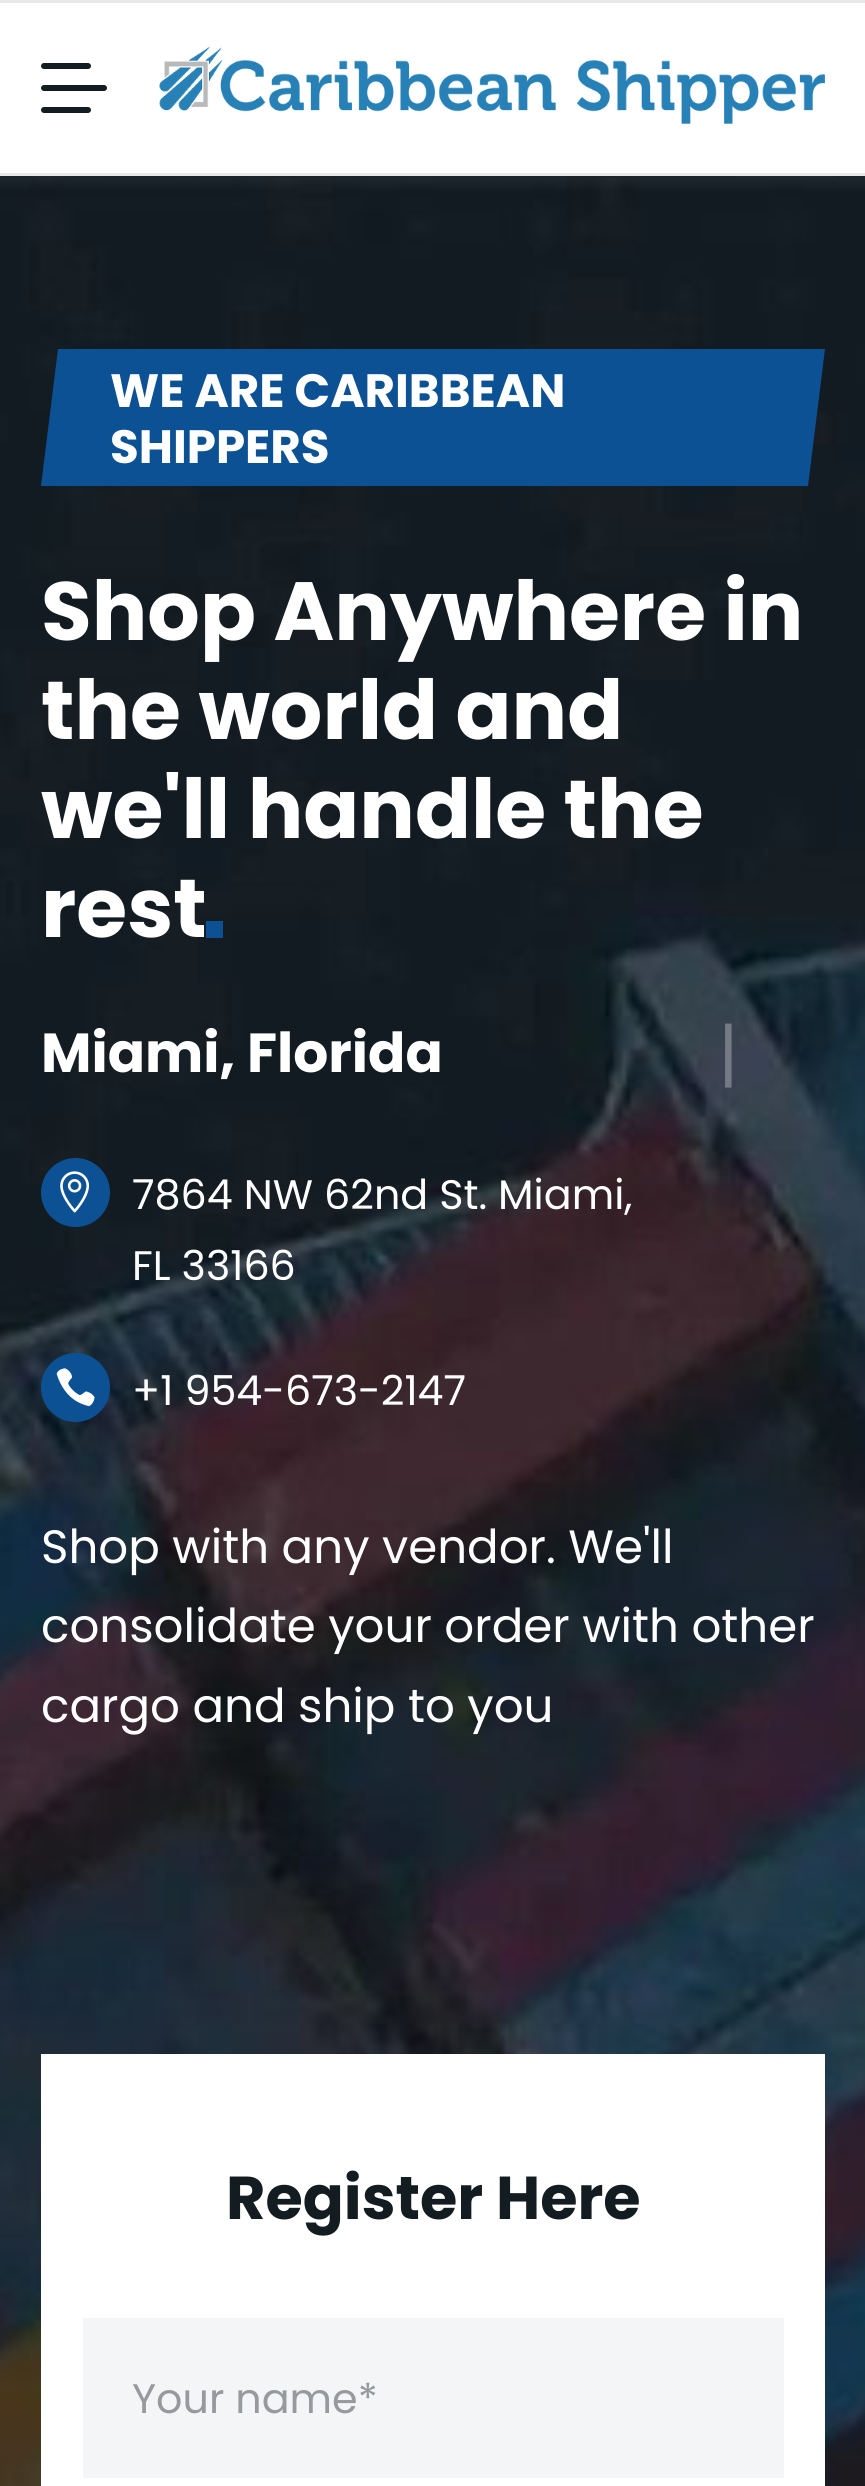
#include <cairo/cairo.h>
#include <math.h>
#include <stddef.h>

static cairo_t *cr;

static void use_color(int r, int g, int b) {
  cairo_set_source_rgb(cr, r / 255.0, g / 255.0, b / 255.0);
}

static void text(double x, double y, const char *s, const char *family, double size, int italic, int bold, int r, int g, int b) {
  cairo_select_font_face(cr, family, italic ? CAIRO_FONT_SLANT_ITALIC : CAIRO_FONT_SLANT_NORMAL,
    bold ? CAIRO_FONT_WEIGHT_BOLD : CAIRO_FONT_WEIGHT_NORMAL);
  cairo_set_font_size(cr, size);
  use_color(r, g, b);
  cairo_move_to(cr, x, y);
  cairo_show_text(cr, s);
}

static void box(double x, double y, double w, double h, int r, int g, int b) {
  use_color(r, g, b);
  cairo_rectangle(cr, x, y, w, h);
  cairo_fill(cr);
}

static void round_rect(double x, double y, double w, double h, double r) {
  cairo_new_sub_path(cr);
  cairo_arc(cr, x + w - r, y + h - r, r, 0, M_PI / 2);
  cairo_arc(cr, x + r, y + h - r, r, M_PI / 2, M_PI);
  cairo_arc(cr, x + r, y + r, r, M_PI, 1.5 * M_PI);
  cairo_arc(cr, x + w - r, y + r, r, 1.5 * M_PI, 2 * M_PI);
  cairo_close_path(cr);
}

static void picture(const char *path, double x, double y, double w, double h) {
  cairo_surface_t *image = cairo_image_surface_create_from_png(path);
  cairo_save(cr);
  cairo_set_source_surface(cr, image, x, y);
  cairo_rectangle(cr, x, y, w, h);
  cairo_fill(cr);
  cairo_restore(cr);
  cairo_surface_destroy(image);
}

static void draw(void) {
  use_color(255, 255, 255);
  cairo_paint(cr);
  box(0, 0, 865, 3, 231, 232, 233);
  use_color(19, 28, 33);
  round_rect(41, 85, 66, 6, 3);
  cairo_fill(cr);
  round_rect(41, 63, 50, 6, 3);
  cairo_fill(cr);
  round_rect(41, 107, 50, 6, 3);
  cairo_fill(cr);
  picture("img_01.png", 159, 46, 666, 78);
  box(0, 173, 865, 3, 231, 232, 233);
  picture("img_02.png", 0, 176, 865, 2310);
  use_color(13, 81, 149);
  cairo_new_path(cr);
  cairo_move_to(cr, 58, 349);
  cairo_line_to(cr, 41, 486);
  cairo_line_to(cr, 808, 486);
  cairo_line_to(cr, 825, 349);
  cairo_close_path(cr);
  cairo_fill(cr);
  box(206, 921, 17, 17, 13, 81, 149);
  cairo_arc(cr, 75.5, 1192.5, 34.5, 0, 2 * M_PI);
  cairo_fill(cr);
  picture("img_03.png", 60, 1171, 30, 42);
  cairo_arc(cr, 75.5, 1387.5, 34.5, 0, 2 * M_PI);
  cairo_fill(cr);
  picture("img_04.png", 56, 1368, 39, 39);
  box(41, 2054, 784, 432, 255, 255, 255);
  box(83, 2318, 701, 160, 243, 245, 246);
  text(110, 407, "WE ARE CARIBBEAN", "Poppins", 46.75, 0, 1, 255, 255, 255);
  text(110, 463, "SHIPPERS", "Poppins", 46.75, 0, 1, 255, 255, 255);
  text(41, 640, "Shop Anywhere in", "Poppins", 82.5, 0, 1, 255, 255, 255);
  text(41, 739, "the world and", "Poppins", 82.5, 0, 1, 255, 255, 255);
  text(41, 838, "we'll handle the", "Poppins", 82.5, 0, 1, 255, 255, 255);
  text(41, 937, "rest", "Poppins", 82.5, 0, 1, 255, 255, 255);
  text(41, 1072, "Miami, Florida", "Poppins", 55, 0, 1, 255, 255, 255);
  text(132, 1209, "7864 NW 62nd St. Miami,", "Poppins", 41.25, 0, 0, 255, 255, 255);
  text(132, 1280, "FL 33166", "Poppins", 41.25, 0, 0, 255, 255, 255);
  text(132, 1405, "+1 954-673-2147", "Poppins", 41.25, 0, 0, 255, 255, 255);
  text(718, 1080, "|", "Poppins", 71, 0, 0, 117, 123, 133);
  text(41, 1563, "Shop with any vendor. We'll", "Poppins", 46.75, 0, 0, 255, 255, 255);
  text(41, 1642, "consolidate your order with other", "Poppins", 46.75, 0, 0, 255, 255, 255);
  text(41, 1722, "cargo and ship to you", "Poppins", 46.75, 0, 0, 255, 255, 255);
  text(226, 2219, "Register Here", "Poppins", 60.5, 0, 1, 19, 28, 33);
  text(132, 2413, "Your name*", "Poppins", 41.25, 0, 0, 149, 154, 157);
}

int main(void) {
  cairo_surface_t *surface = cairo_image_surface_create(CAIRO_FORMAT_RGB24, 865, 2486);
  cr = cairo_create(surface);
  cairo_font_options_t *options = cairo_font_options_create();
  cairo_font_options_set_hint_metrics(options, CAIRO_HINT_METRICS_OFF);
  cairo_font_options_set_hint_style(options, CAIRO_HINT_STYLE_NONE);
  cairo_set_font_options(cr, options);
  cairo_set_miter_limit(cr, 4);
  draw();
  cairo_surface_write_to_png(surface, "out.png");
  cairo_font_options_destroy(options);
  cairo_destroy(cr);
  cairo_surface_destroy(surface);
  return 0;
}
